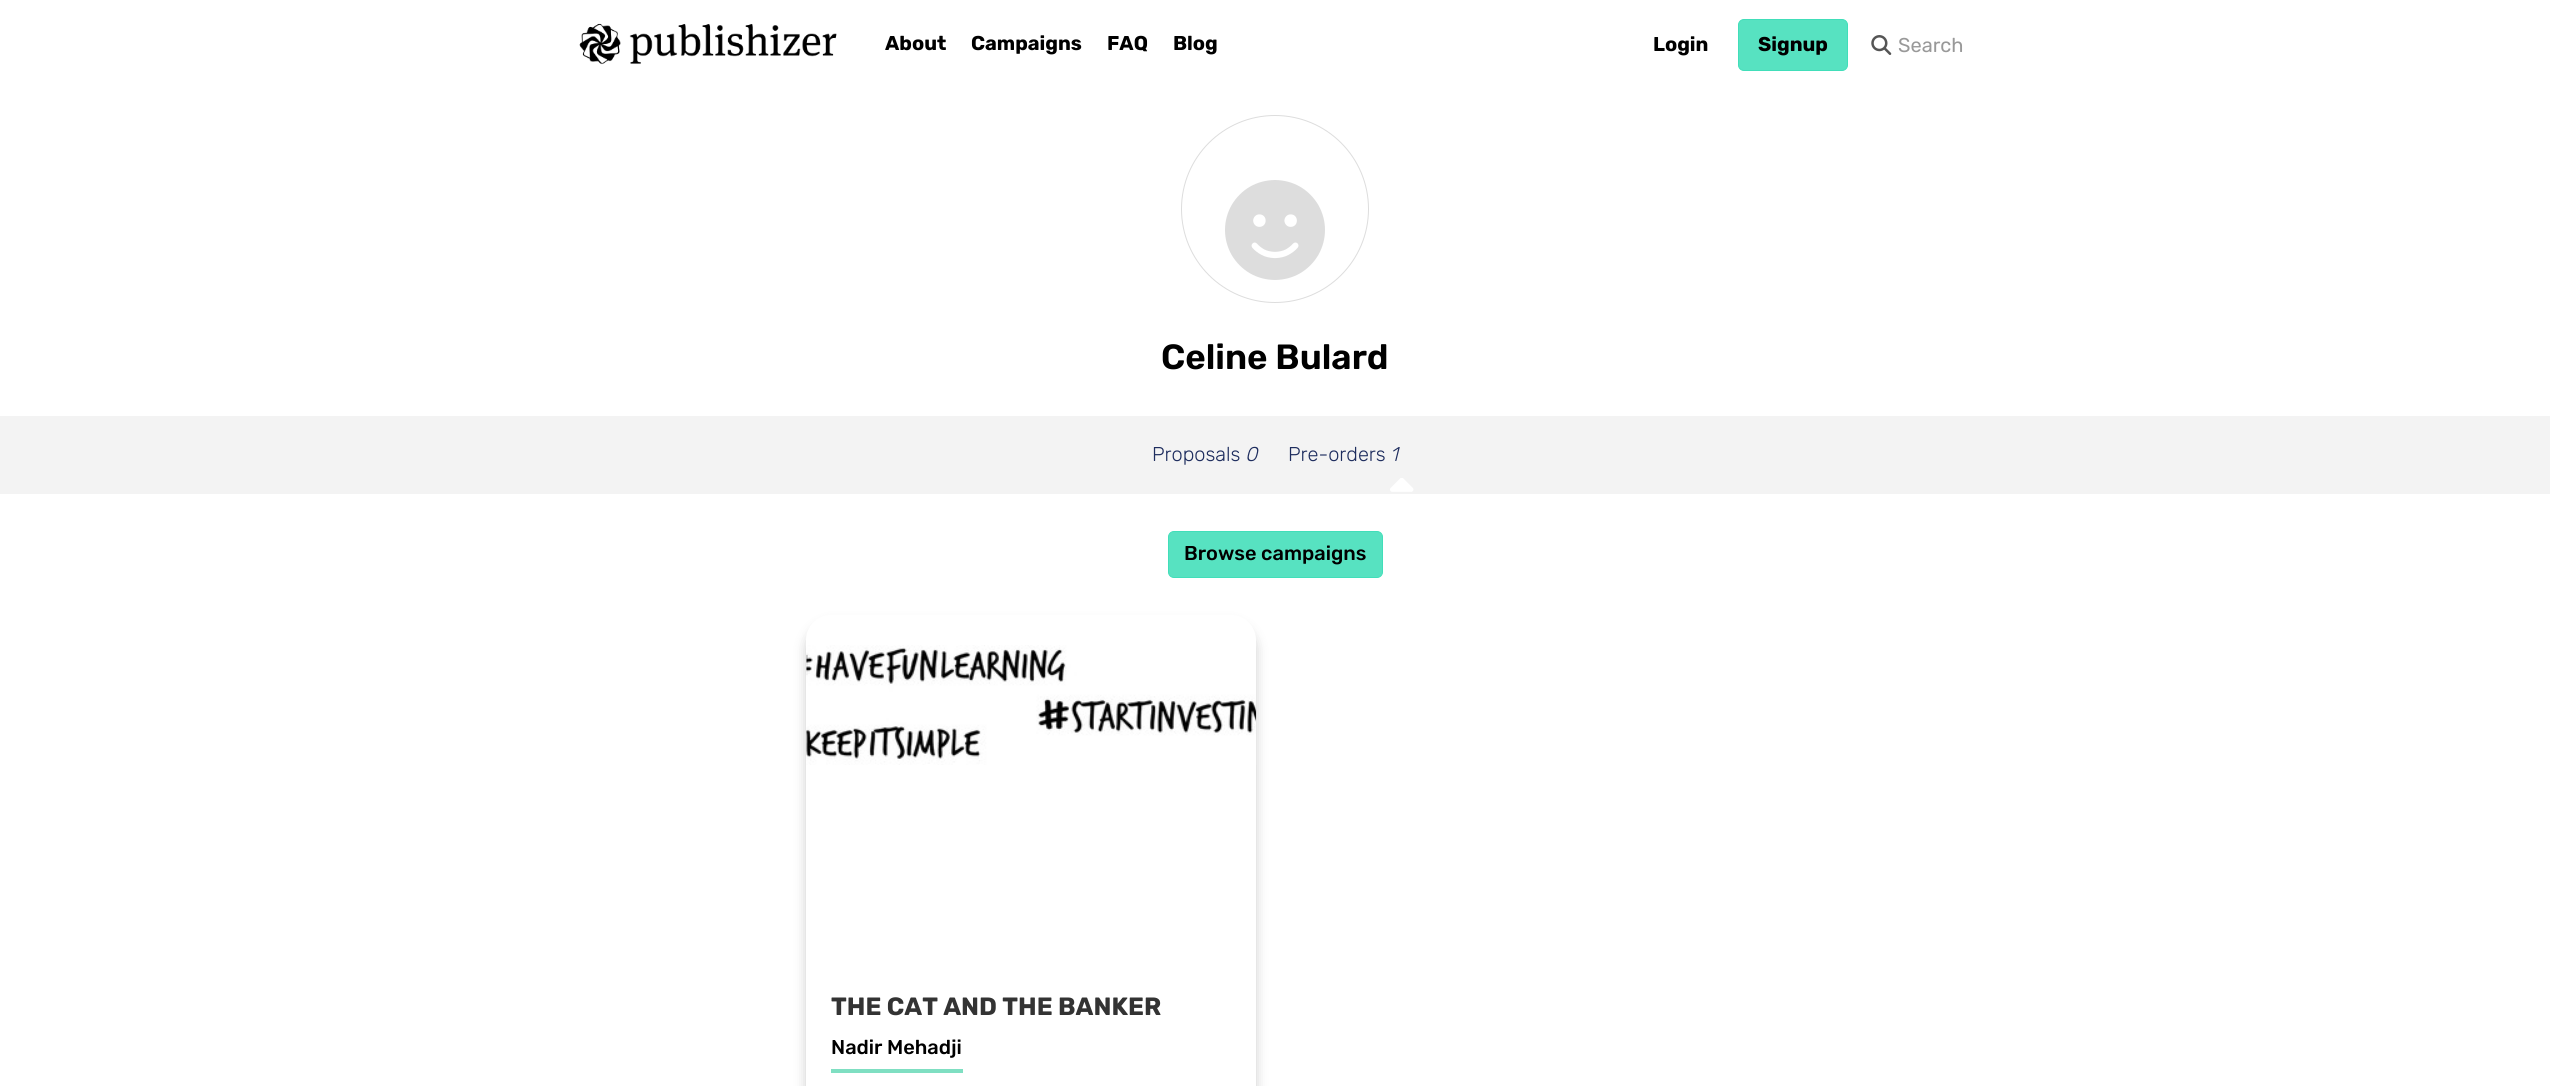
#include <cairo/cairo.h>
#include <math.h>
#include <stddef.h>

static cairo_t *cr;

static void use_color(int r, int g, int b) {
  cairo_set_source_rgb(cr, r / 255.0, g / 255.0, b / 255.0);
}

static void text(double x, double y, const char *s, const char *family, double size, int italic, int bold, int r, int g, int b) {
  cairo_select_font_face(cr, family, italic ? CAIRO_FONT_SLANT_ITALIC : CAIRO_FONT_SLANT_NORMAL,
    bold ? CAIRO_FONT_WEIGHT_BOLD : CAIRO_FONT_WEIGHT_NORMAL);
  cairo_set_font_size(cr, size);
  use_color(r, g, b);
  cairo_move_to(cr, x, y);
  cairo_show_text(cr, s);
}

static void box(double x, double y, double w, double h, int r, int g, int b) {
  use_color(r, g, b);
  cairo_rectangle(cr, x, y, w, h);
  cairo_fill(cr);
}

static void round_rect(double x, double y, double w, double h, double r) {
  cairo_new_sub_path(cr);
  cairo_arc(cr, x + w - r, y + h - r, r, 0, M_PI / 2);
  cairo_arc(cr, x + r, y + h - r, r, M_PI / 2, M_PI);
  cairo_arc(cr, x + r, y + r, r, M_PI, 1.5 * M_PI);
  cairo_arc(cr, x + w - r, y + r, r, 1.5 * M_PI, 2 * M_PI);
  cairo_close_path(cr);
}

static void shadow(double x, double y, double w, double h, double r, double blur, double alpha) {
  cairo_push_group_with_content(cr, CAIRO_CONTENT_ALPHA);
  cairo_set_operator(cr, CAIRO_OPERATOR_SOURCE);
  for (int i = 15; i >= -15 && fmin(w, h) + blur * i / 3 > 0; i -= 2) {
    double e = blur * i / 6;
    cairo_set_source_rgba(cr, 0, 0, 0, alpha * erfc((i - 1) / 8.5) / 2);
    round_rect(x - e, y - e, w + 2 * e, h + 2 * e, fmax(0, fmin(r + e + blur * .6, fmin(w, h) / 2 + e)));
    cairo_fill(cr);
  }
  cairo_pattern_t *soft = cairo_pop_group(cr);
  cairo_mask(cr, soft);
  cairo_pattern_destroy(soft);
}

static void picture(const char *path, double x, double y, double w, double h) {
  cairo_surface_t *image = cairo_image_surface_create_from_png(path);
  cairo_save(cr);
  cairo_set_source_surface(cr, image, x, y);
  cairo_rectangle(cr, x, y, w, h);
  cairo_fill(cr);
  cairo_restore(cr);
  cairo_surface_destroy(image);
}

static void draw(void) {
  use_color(255, 255, 255);
  cairo_paint(cr);
  picture("img_01.png", 579, 23, 258, 42);
  use_color(87, 226, 193);
  round_rect(1738.5, 19.5, 109, 51, 5.5);
  cairo_fill_preserve(cr);
  use_color(65, 222, 185);
  cairo_set_line_width(cr, 1);
  cairo_stroke(cr);
  picture("img_02.png", 1871, 35, 21, 20);
  cairo_arc(cr, 1275, 209, 93.5, 0, 2 * M_PI);
  use_color(221, 221, 221);
  cairo_stroke(cr);
  picture("img_03.png", 1225, 180, 100, 100);
  box(0, 416, 2550, 78, 243, 243, 243);
  picture("img_04.png", 1390, 478, 24, 14);
  use_color(87, 226, 193);
  round_rect(1168.5, 531.5, 214, 46, 5.5);
  cairo_fill_preserve(cr);
  use_color(65, 222, 185);
  cairo_stroke(cr);
  use_color(0, 0, 0);
  shadow(806, 624, 450, 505, 25, 6, 0.2);
  use_color(255, 255, 255);
  round_rect(806, 615, 450, 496, 25);
  cairo_fill(cr);
  picture("img_05.png", 806, 645, 451, 120);
  box(831, 1069, 132, 4, 127, 223, 194);
  text(885, 50, "About", "Rubik", 20, 0, 1, 0, 0, 0);
  text(971, 50, "Campaigns", "Rubik", 20, 0, 1, 0, 0, 0);
  text(1107, 50, "FAQ", "Rubik", 20, 0, 1, 0, 0, 0);
  text(1173, 50, "Blog", "Rubik", 20, 0, 1, 0, 0, 0);
  text(1653, 51, "Login", "Rubik", 20, 0, 1, 0, 0, 0);
  text(1758, 51, "Signup", "Rubik", 20, 0, 1, 0, 0, 0);
  text(1898, 52, "Search", "Rubik", 20, 0, 0, 153, 153, 153);
  text(1161, 369, "Celine Bulard", "Rubik SemiBold", 35, 0, 0, 0, 0, 0);
  text(1152, 461, "Proposals", "Rubik Light", 20, 0, 0, 30, 45, 94);
  text(1245, 461, "0", "Rubik Light", 20, 1, 0, 30, 45, 94);
  text(1288, 461, "Pre-orders", "Rubik Light", 20, 0, 0, 30, 45, 94);
  text(1390, 461, "1", "Rubik Light", 20, 1, 0, 30, 45, 94);
  text(1184, 560, "Browse campaigns", "Rubik Medium", 20, 0, 0, 0, 0, 0);
  text(831, 1015, "THE CAT AND THE BANKER", "Rubik", 25, 0, 1, 51, 51, 51);
  text(831, 1054, "Nadir Mehadji", "Rubik Medium", 20, 0, 0, 0, 0, 0);
}

int main(void) {
  cairo_surface_t *surface = cairo_image_surface_create(CAIRO_FORMAT_RGB24, 2550, 1086);
  cr = cairo_create(surface);
  cairo_font_options_t *options = cairo_font_options_create();
  cairo_font_options_set_hint_metrics(options, CAIRO_HINT_METRICS_OFF);
  cairo_font_options_set_hint_style(options, CAIRO_HINT_STYLE_NONE);
  cairo_set_font_options(cr, options);
  cairo_set_miter_limit(cr, 4);
  draw();
  cairo_surface_write_to_png(surface, "out.png");
  cairo_font_options_destroy(options);
  cairo_destroy(cr);
  cairo_surface_destroy(surface);
  return 0;
}
